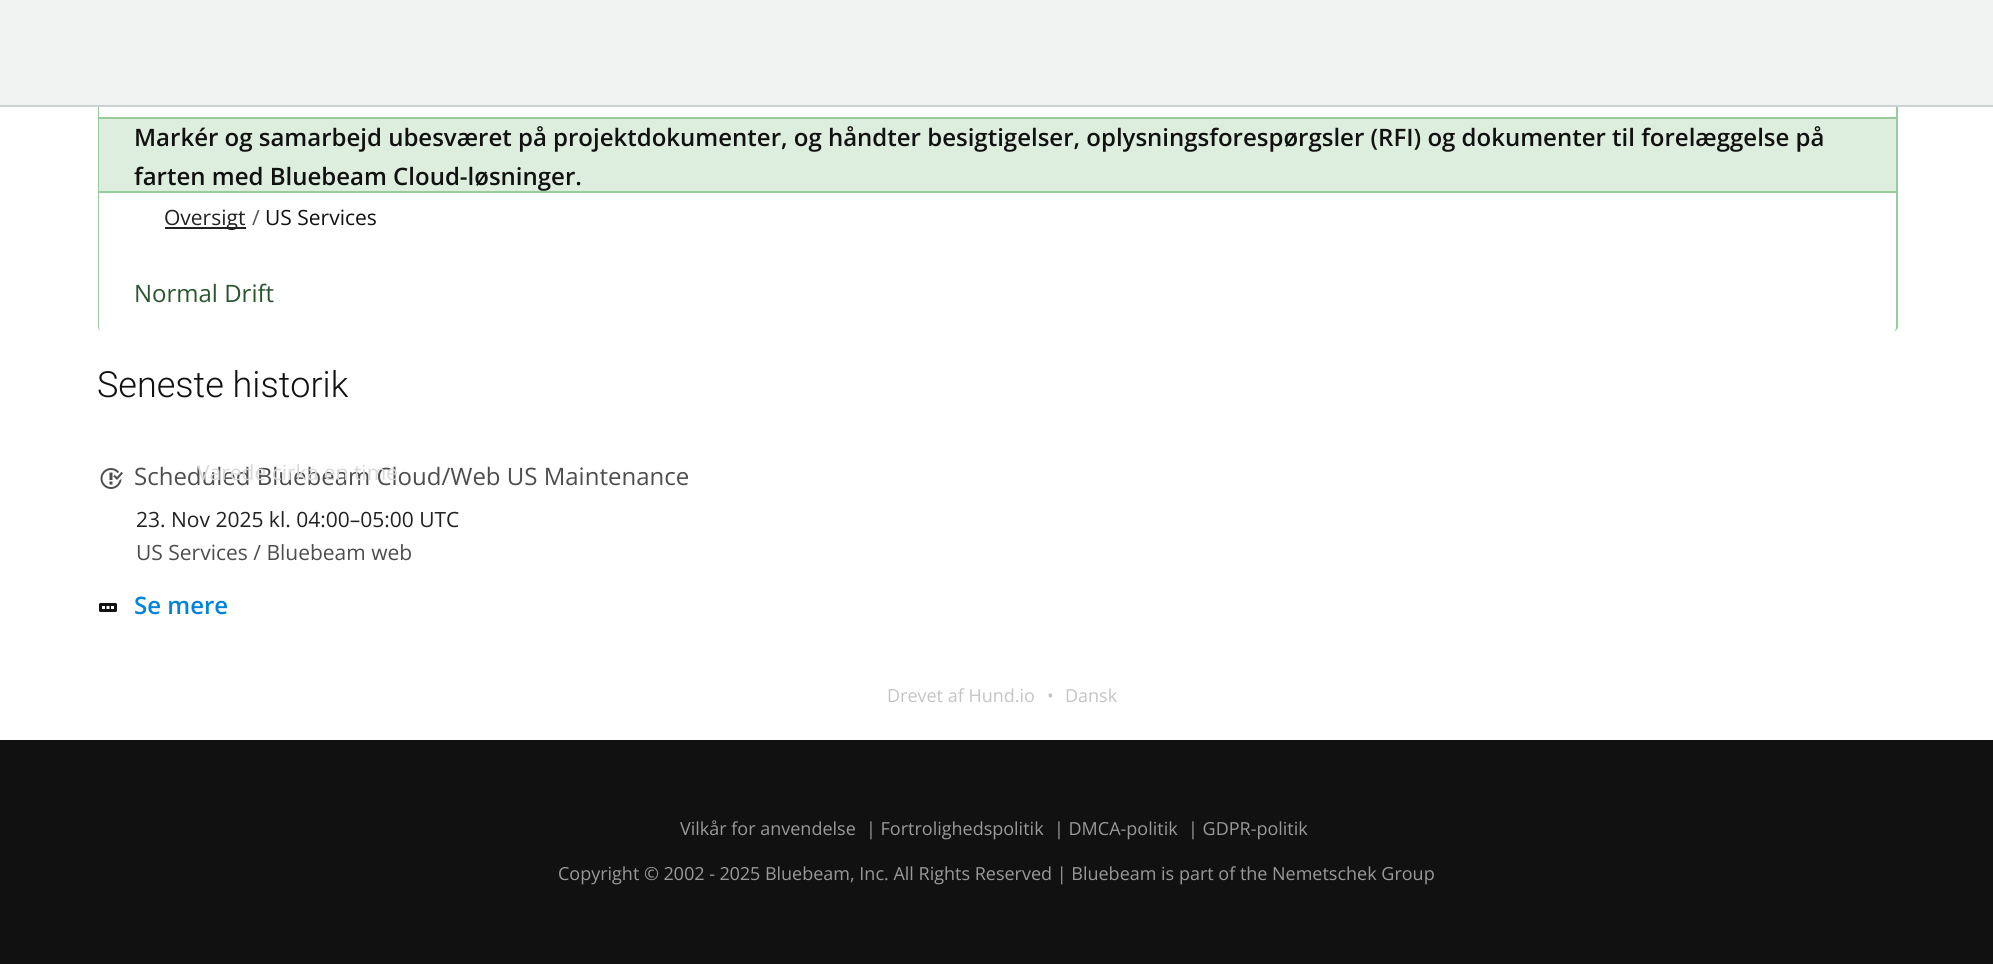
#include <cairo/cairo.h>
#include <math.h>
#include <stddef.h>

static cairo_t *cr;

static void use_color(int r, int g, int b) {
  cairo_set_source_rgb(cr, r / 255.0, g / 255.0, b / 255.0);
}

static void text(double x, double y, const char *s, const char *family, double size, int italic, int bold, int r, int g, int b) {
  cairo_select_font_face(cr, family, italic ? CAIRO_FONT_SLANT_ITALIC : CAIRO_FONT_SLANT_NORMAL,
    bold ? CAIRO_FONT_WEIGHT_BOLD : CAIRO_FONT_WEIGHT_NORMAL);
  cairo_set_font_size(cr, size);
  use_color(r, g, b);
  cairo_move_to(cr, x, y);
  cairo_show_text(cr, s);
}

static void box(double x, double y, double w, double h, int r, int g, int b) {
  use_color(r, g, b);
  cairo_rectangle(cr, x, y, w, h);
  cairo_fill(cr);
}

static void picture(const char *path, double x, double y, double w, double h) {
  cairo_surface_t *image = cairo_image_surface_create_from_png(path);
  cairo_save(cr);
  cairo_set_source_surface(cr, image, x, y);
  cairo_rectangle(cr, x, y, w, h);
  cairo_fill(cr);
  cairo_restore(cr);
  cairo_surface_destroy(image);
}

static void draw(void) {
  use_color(255, 255, 255);
  cairo_paint(cr);
  use_color(153, 204, 156);
  cairo_set_fill_rule(cr, CAIRO_FILL_RULE_EVEN_ODD);
  cairo_new_path(cr);
  cairo_move_to(cr, 102, 40);
  cairo_line_to(cr, 1893, 40);
  cairo_curve_to(cr, 1895, 40, 1898, 43, 1898, 45);
  cairo_line_to(cr, 1898, 327);
  cairo_curve_to(cr, 1898, 329, 1895, 332, 1893, 332);
  cairo_line_to(cr, 102, 332);
  cairo_curve_to(cr, 100, 332, 98, 329, 98, 327);
  cairo_line_to(cr, 98, 45);
  cairo_curve_to(cr, 98, 43, 100, 40, 102, 40);
  cairo_close_path(cr);
  cairo_move_to(cr, 102, 42);
  cairo_line_to(cr, 1893, 42);
  cairo_curve_to(cr, 1895, 42, 1896, 43, 1896, 45);
  cairo_line_to(cr, 1896, 327);
  cairo_curve_to(cr, 1896, 329, 1895, 332, 1893, 332);
  cairo_line_to(cr, 102, 332);
  cairo_curve_to(cr, 100, 332, 99, 329, 99, 327);
  cairo_line_to(cr, 99, 45);
  cairo_curve_to(cr, 99, 43, 100, 42, 102, 42);
  cairo_close_path(cr);
  cairo_fill(cr);
  box(0, 105, 1993, 2, 206, 209, 209);
  box(0, 0, 1993, 105, 241, 242, 242);
  box(165, 227, 81, 2, 34, 34, 34);
  box(99, 119, 1797, 72, 221, 238, 222);
  box(99, 117, 1797, 2, 153, 204, 156);
  box(99, 191, 1797, 2, 153, 204, 156);
  picture("img_01.png", 100, 468, 23, 21);
  picture("img_02.png", 99, 603, 18, 9);
  box(0, 740, 1993, 224, 17, 17, 17);
  text(134, 146, "Markér og samarbejd ubesværet på projektdokumenter, og håndter besigtigelser, oplysningsforespørgsler (RFI) og dokumenter til forelæggelse på", "Open Sans SemiBold", 24, 0, 0, 17, 17, 17);
  text(134, 185, "farten med Bluebeam Cloud-løsninger.", "Open Sans SemiBold", 24, 0, 0, 17, 17, 17);
  text(164, 225, "Oversigt", "Open Sans", 21, 0, 0, 34, 34, 34);
  text(252, 225, "/", "Open Sans", 21, 0, 0, 86, 86, 86);
  text(265, 225, "US Services", "Open Sans", 21, 0, 0, 17, 17, 17);
  text(134, 302, "Normal Drift", "Open Sans", 24, 0, 0, 43, 86, 45);
  text(97, 397, "Seneste historik", "Roboto Light", 36, 0, 0, 17, 17, 17);
  text(136, 527, "23. Nov 2025 kl. 04:00–05:00 UTC", "Open Sans", 21, 0, 0, 34, 34, 34);
  text(134, 485, "Scheduled Bluebeam Cloud/Web US Maintenance", "Open Sans", 24, 0, 0, 77, 77, 77);
  text(197, 480, "Varede cirka en time", "Open Sans", 21, 0, 0, 217, 217, 217);
  text(136, 560, "US Services / Bluebeam web", "Open Sans", 21, 0, 0, 77, 77, 77);
  text(134, 614, "Se mere", "Open Sans SemiBold", 24, 0, 0, 0, 131, 219);
  text(887, 702, "Drevet af Hund.io", "Open Sans", 18, 0, 0, 196, 196, 196);
  text(1047, 702, "•", "Open Sans", 18, 0, 0, 196, 196, 196);
  text(1065, 702, "Dansk", "Open Sans", 18, 0, 0, 196, 196, 196);
  text(680, 835, "Vilkår for anvendelse", "Open Sans", 18, 0, 0, 153, 153, 153);
  text(866, 835, "| Fortrolighedspolitik", "Open Sans", 18, 0, 0, 153, 153, 153);
  text(1054, 835, "| DMCA-politik", "Open Sans", 18, 0, 0, 153, 153, 153);
  text(1188, 835, "| GDPR-politik", "Open Sans", 18, 0, 0, 153, 153, 153);
  text(558, 880, "Copyright © 2002 - 2025 Bluebeam, Inc. All Rights Reserved | Bluebeam is part of the", "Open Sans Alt", 18, 0, 0, 153, 153, 153);
  text(1272, 880, "Nemetschek Group", "Open Sans", 18, 0, 0, 153, 153, 153);
}

int main(void) {
  cairo_surface_t *surface = cairo_image_surface_create(CAIRO_FORMAT_RGB24, 1993, 964);
  cr = cairo_create(surface);
  cairo_font_options_t *options = cairo_font_options_create();
  cairo_font_options_set_hint_metrics(options, CAIRO_HINT_METRICS_OFF);
  cairo_font_options_set_hint_style(options, CAIRO_HINT_STYLE_NONE);
  cairo_set_font_options(cr, options);
  cairo_set_miter_limit(cr, 4);
  draw();
  cairo_surface_write_to_png(surface, "out.png");
  cairo_font_options_destroy(options);
  cairo_destroy(cr);
  cairo_surface_destroy(surface);
  return 0;
}
